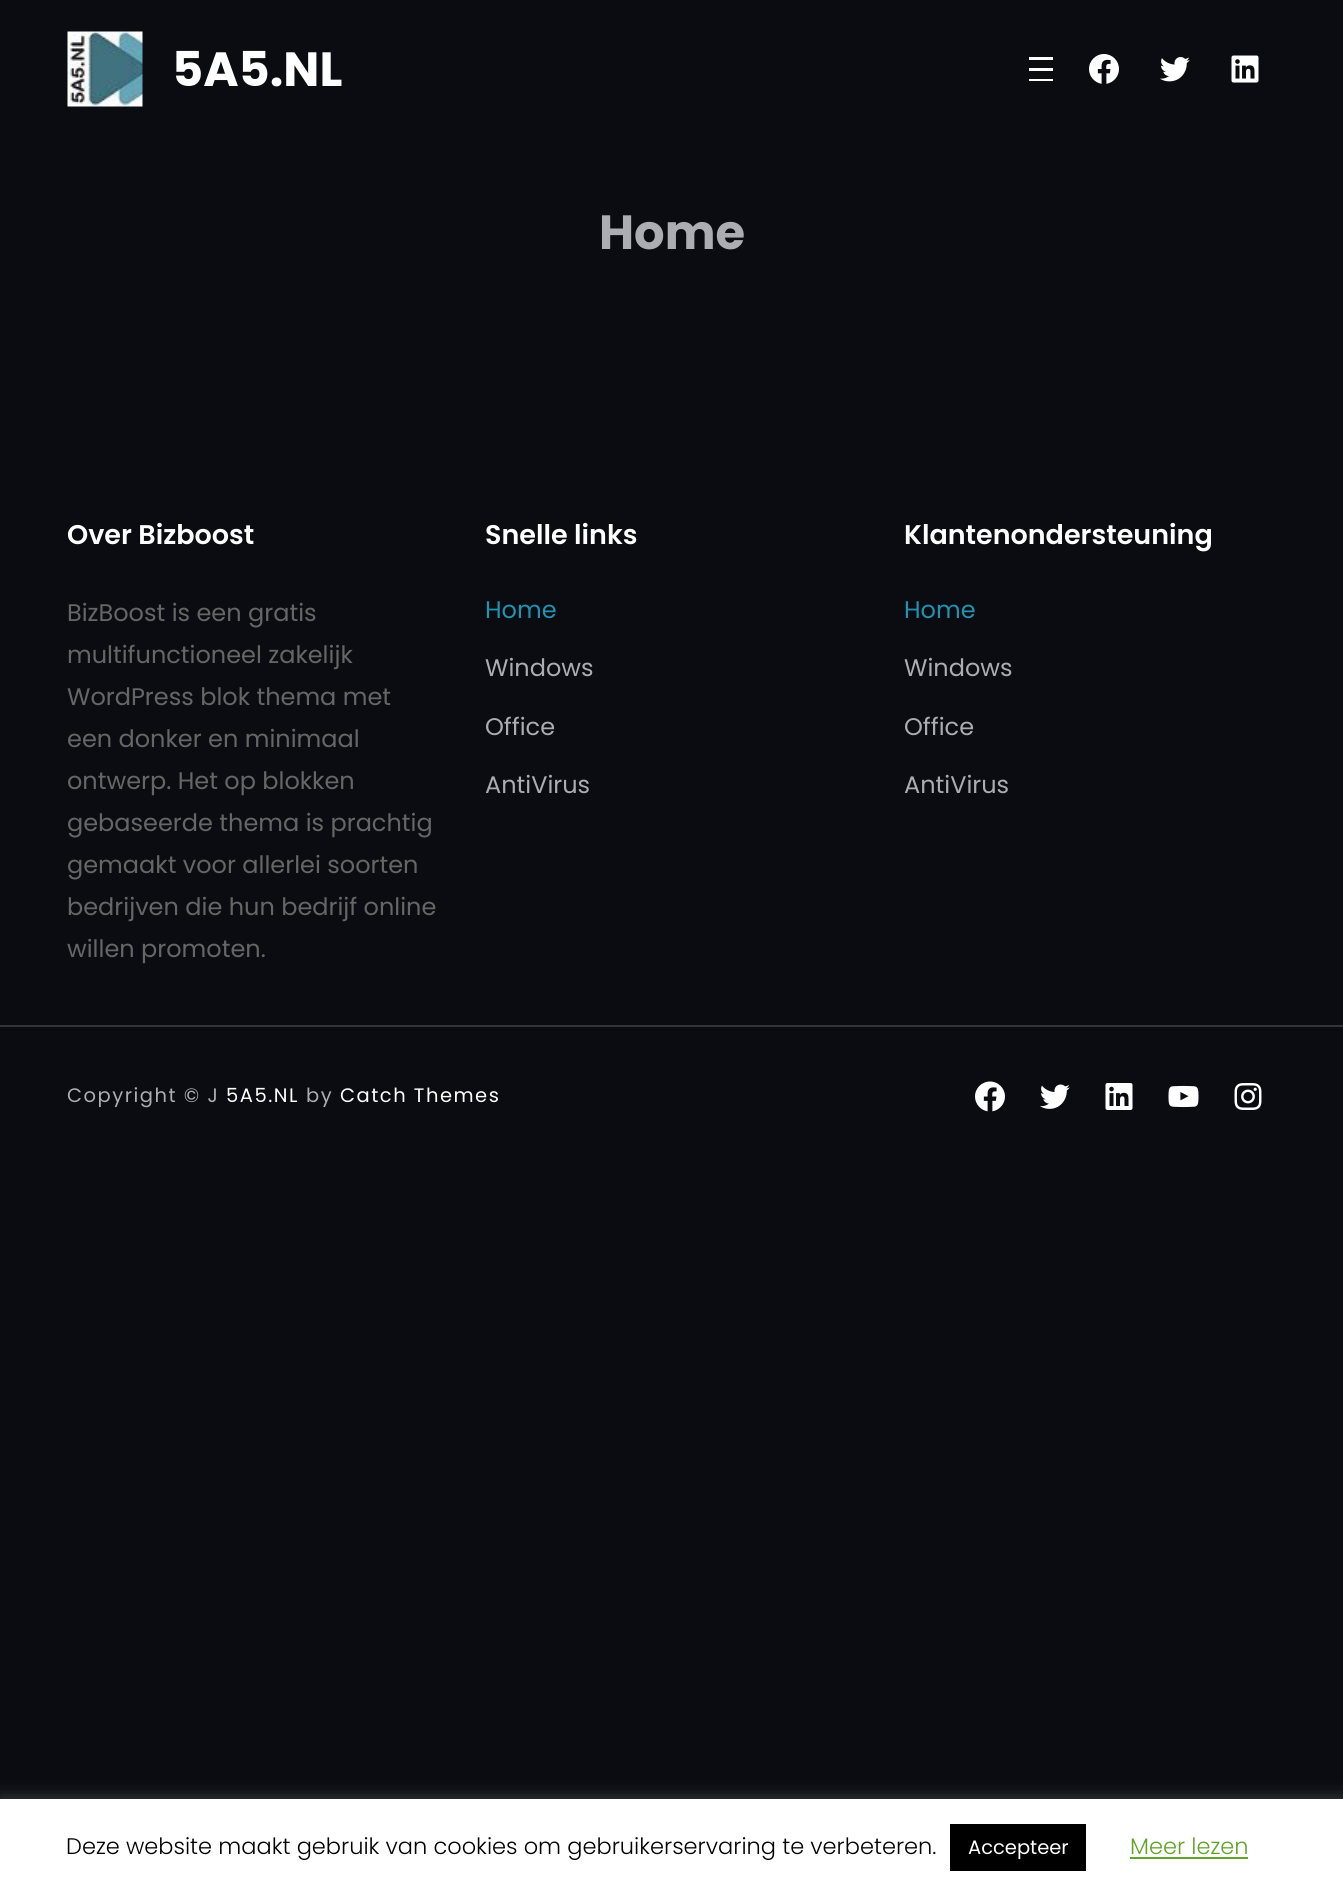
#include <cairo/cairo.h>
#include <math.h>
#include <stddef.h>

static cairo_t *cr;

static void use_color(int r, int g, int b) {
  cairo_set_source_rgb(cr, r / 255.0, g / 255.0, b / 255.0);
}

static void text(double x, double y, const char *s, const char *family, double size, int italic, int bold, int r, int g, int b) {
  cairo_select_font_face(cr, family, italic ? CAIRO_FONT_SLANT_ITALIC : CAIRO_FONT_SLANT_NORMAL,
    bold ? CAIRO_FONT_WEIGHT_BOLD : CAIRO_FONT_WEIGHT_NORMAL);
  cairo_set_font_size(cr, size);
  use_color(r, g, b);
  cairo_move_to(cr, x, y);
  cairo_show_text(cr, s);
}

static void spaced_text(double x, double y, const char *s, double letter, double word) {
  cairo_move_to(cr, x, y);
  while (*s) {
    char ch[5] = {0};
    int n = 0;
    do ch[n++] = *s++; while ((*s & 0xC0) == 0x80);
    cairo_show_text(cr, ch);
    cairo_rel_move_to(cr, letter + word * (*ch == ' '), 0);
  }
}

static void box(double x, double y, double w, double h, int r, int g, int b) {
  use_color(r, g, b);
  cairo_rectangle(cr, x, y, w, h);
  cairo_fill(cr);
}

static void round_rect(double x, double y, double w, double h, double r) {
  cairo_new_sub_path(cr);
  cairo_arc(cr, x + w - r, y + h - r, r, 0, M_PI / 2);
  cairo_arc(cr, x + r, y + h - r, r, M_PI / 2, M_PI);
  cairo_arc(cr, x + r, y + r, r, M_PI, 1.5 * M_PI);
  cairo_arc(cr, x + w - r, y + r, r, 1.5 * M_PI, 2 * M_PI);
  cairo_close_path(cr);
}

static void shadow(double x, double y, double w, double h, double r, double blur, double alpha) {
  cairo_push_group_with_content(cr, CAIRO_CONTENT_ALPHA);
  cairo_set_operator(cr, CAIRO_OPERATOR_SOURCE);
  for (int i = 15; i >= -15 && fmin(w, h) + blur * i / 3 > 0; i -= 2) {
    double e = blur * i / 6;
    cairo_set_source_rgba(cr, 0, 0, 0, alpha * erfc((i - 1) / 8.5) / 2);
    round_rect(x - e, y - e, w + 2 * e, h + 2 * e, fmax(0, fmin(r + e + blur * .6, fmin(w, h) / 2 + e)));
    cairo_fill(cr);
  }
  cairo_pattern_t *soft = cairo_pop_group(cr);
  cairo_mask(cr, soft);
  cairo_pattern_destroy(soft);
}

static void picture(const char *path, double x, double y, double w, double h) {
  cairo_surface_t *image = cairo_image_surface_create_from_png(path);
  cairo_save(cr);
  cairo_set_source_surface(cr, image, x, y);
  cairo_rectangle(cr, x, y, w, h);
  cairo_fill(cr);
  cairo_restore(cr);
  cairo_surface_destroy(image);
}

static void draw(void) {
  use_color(10, 12, 17);
  cairo_paint(cr);
  picture("img_01.png", 67, 31, 76, 76);
  box(1029, 57, 24, 3, 255, 255, 255);
  box(1029, 68, 24, 3, 255, 255, 255);
  box(1029, 79, 24, 2, 255, 255, 255);
  picture("img_02.png", 1089, 54, 30, 30);
  picture("img_03.png", 1160, 57, 30, 25);
  picture("img_04.png", 1231, 55, 28, 28);
  box(0, 1025, 1343, 2, 50, 52, 56);
  picture("img_05.png", 975, 1081, 30, 31);
  picture("img_06.png", 1040, 1084, 30, 25);
  picture("img_07.png", 1105, 1083, 28, 27);
  picture("img_08.png", 1168, 1085, 31, 23);
  picture("img_09.png", 1234, 1083, 28, 27);
  use_color(172, 171, 171);
  shadow(0, 1797, 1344, 98, 0, 7.5, 0.3);
  box(0, 1799, 1343, 96, 255, 255, 255);
  box(950, 1824, 136, 47, 0, 0, 0);
  box(1130, 1857, 118, 2, 98, 163, 41);
  text(172, 86, "5A5.NL", "Poppins", 48, 0, 1, 255, 255, 255);
  text(599, 249, "Home", "Poppins", 48, 0, 1, 171, 173, 179);
  text(67, 544, "Over Bizboost", "Poppins SemiBold", 27, 0, 0, 255, 255, 255);
  text(67, 621, "BizBoost is een gratis", "Poppins", 24, 0, 0, 102, 102, 102);
  text(67, 663, "multifunctioneel zakelijk", "Poppins", 24, 0, 0, 102, 102, 102);
  text(67, 705, "WordPress blok thema met", "Poppins", 24, 0, 0, 102, 102, 102);
  text(67, 747, "een donker en minimaal", "Poppins", 24, 0, 0, 102, 102, 102);
  text(67, 789, "ontwerp. Het op blokken", "Poppins", 24, 0, 0, 102, 102, 102);
  text(67, 831, "gebaseerde thema is prachtig", "Poppins", 24, 0, 0, 102, 102, 102);
  text(67, 873, "gemaakt voor allerlei soorten", "Poppins", 24, 0, 0, 102, 102, 102);
  text(67, 915, "bedrijven die hun bedrijf online", "Poppins", 24, 0, 0, 102, 102, 102);
  text(67, 957, "willen promoten.", "Poppins", 24, 0, 0, 102, 102, 102);
  text(485, 544, "Snelle links", "Poppins SemiBold", 27, 0, 0, 255, 255, 255);
  text(485, 618, "Home", "Poppins", 24, 0, 0, 34, 146, 177);
  text(485, 676, "Windows", "Poppins", 24, 0, 0, 171, 173, 179);
  text(485, 735, "Office", "Poppins", 24, 0, 0, 171, 173, 179);
  text(485, 793, "AntiVirus", "Poppins", 24, 0, 0, 171, 173, 179);
  text(904, 544, "Klantenondersteuning", "Poppins SemiBold", 27, 0, 0, 255, 255, 255);
  text(904, 618, "Home", "Poppins", 24, 0, 0, 34, 146, 177);
  text(904, 676, "Windows", "Poppins", 24, 0, 0, 171, 173, 179);
  text(904, 735, "Office", "Poppins", 24, 0, 0, 171, 173, 179);
  text(904, 793, "AntiVirus", "Poppins", 24, 0, 0, 171, 173, 179);
  cairo_set_font_size(cr, 19.5);
  spaced_text(67, 1102, "Copyright © J", 1.5, 0);
  use_color(255, 255, 255);
  spaced_text(226, 1102, "5A5.NL", 1.5, 0);
  use_color(171, 173, 179);
  spaced_text(306, 1102, "by", 1.5, 0);
  use_color(255, 255, 255);
  spaced_text(340, 1102, "Catch Themes", 1.5, 0);
  text(66, 1854, "Deze website maakt gebruik van cookies om gebruikerservaring te verbeteren.", "Poppins Light", 22.5, 0, 0, 0, 0, 0);
  text(968, 1854, "Accepteer", "Poppins", 19.5, 0, 0, 255, 255, 255);
  text(1130, 1854, "Meer lezen", "Poppins Light", 22.5, 0, 0, 98, 163, 41);
}

int main(void) {
  cairo_surface_t *surface = cairo_image_surface_create(CAIRO_FORMAT_RGB24, 1343, 1895);
  cr = cairo_create(surface);
  cairo_font_options_t *options = cairo_font_options_create();
  cairo_font_options_set_hint_metrics(options, CAIRO_HINT_METRICS_OFF);
  cairo_font_options_set_hint_style(options, CAIRO_HINT_STYLE_NONE);
  cairo_set_font_options(cr, options);
  cairo_set_miter_limit(cr, 4);
  draw();
  cairo_surface_write_to_png(surface, "out.png");
  cairo_font_options_destroy(options);
  cairo_destroy(cr);
  cairo_surface_destroy(surface);
  return 0;
}
